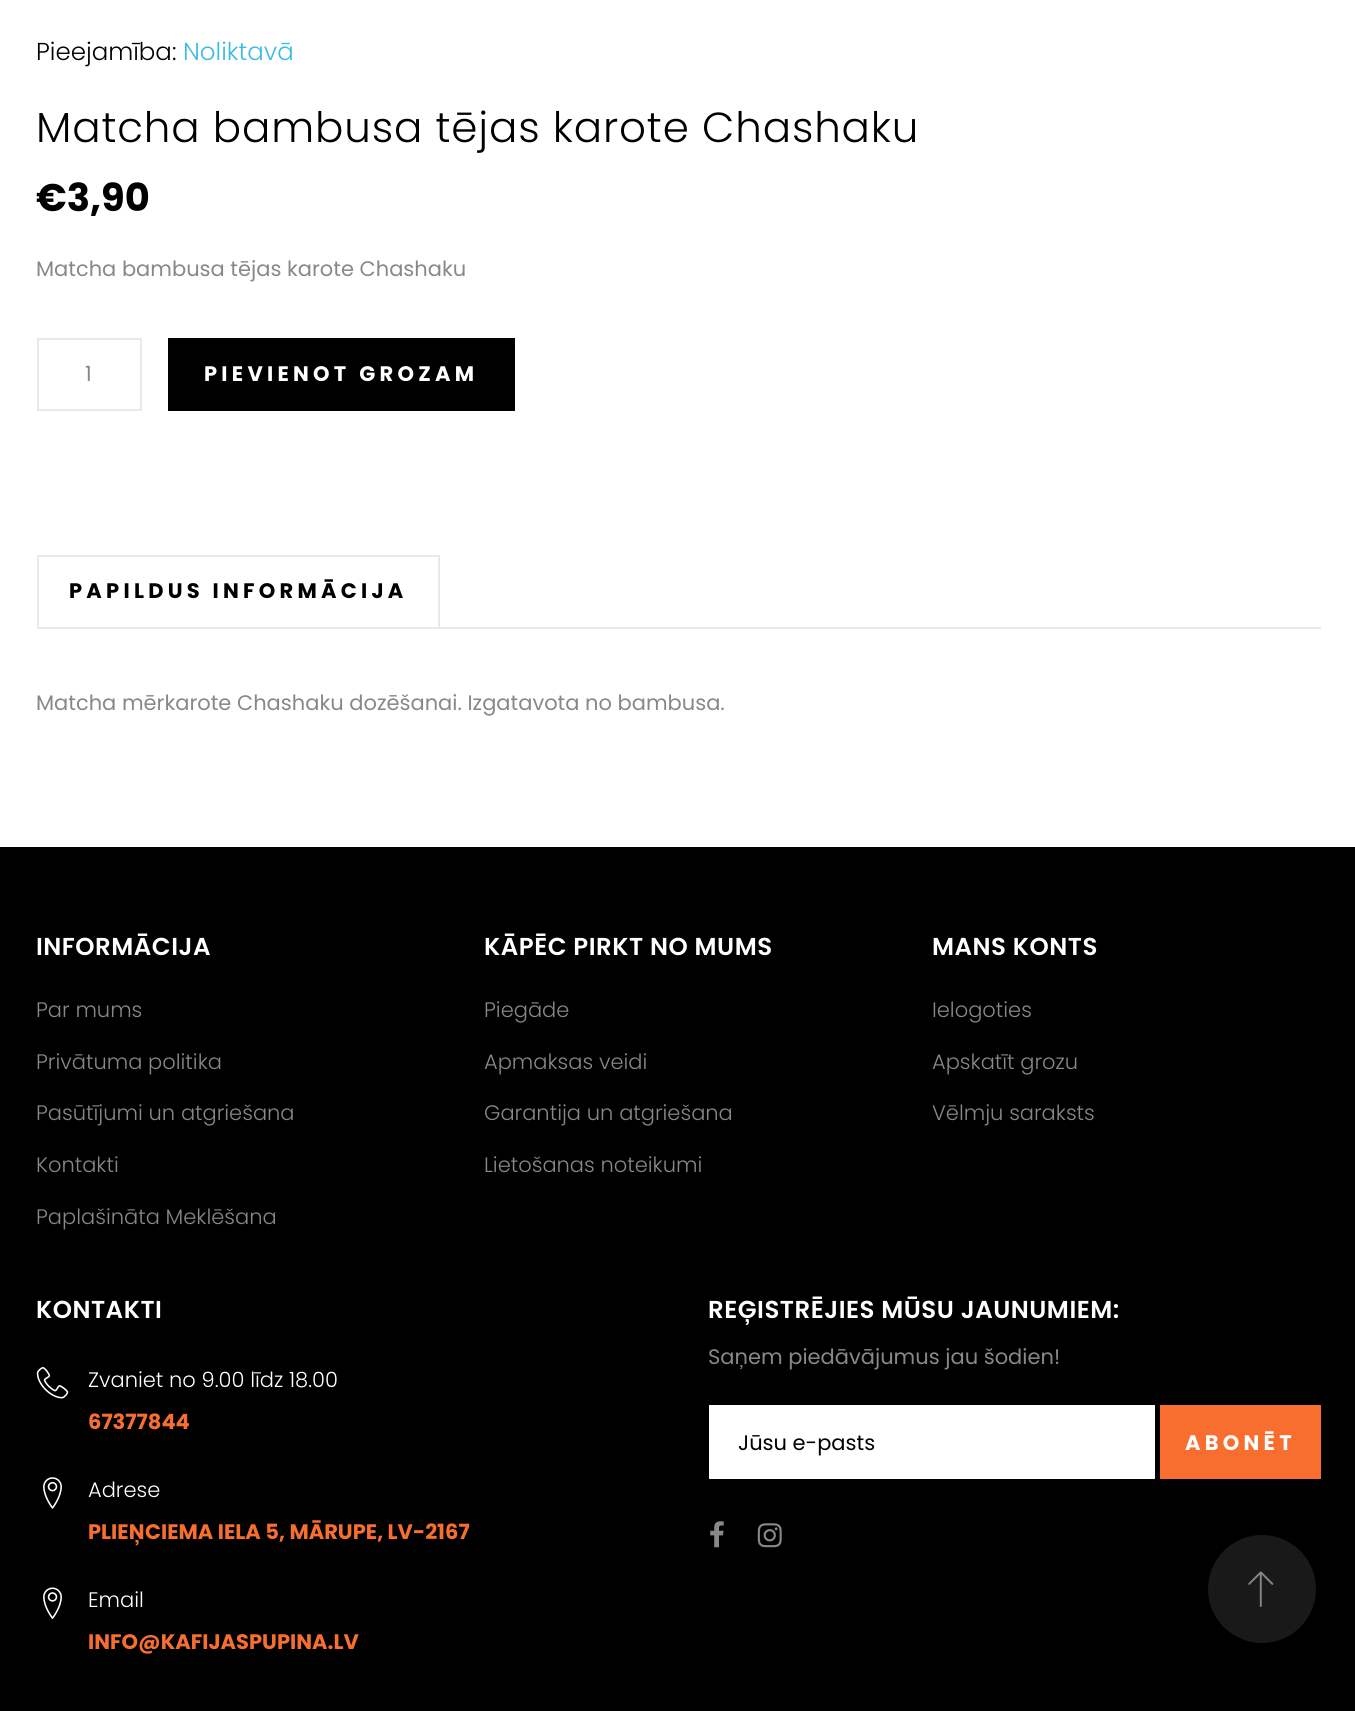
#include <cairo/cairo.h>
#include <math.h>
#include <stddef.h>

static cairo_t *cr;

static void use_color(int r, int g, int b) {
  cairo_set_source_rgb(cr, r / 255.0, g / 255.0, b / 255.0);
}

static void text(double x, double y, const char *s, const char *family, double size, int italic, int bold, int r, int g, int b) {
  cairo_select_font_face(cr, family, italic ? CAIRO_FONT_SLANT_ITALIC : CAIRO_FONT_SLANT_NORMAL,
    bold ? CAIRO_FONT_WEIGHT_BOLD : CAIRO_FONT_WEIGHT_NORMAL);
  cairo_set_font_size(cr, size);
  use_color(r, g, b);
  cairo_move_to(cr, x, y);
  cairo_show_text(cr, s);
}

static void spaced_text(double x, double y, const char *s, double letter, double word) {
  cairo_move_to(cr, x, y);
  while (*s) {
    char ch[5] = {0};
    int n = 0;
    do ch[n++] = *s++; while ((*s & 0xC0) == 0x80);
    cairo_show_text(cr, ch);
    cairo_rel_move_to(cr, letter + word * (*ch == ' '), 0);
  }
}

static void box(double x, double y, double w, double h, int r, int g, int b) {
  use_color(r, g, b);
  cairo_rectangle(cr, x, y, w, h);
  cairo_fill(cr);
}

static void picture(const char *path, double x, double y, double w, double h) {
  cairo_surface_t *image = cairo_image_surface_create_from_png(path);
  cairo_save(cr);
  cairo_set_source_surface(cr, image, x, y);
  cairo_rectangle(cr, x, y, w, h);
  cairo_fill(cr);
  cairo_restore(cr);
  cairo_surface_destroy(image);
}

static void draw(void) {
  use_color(255, 255, 255);
  cairo_paint(cr);
  cairo_rectangle(cr, 38, 339, 103, 71);
  use_color(234, 233, 233);
  cairo_stroke(cr);
  box(168, 338, 347, 73, 0, 0, 0);
  box(37, 555, 402, 2, 234, 233, 233);
  box(438, 555, 2, 72, 234, 233, 233);
  box(37, 555, 2, 72, 234, 233, 233);
  box(37, 627, 1284, 2, 234, 233, 233);
  box(0, 847, 1355, 864, 0, 0, 0);
  picture("img_01.png", 36, 1367, 33, 32);
  picture("img_02.png", 43, 1477, 19, 32);
  picture("img_03.png", 43, 1587, 19, 32);
  box(709, 1405, 446, 74, 255, 255, 255);
  box(1160, 1405, 161, 74, 247, 110, 47);
  picture("img_04.png", 710, 1521, 14, 27);
  picture("img_05.png", 757, 1523, 25, 25);
  use_color(25, 25, 25);
  cairo_arc(cr, 1262, 1589, 54, 0, 2 * M_PI);
  cairo_fill(cr);
  picture("img_06.png", 1248, 1571, 26, 36);
  text(36, 60, "Pieejamība:", "Poppins Light", 24.5, 0, 0, 0, 0, 0);
  text(183, 60, "Noliktavā", "Poppins Light", 24.5, 0, 0, 58, 188, 226);
  cairo_set_font_size(cr, 42);
  use_color(0, 0, 0);
  spaced_text(36, 142, "Matcha bambusa tējas karote Chashaku", 0.85, 0);
  text(36, 211, "€3,90", "Poppins", 38.5, 0, 1, 0, 0, 0);
  text(36, 276, "Matcha bambusa tējas karote Chashaku", "Poppins", 21, 0, 0, 136, 136, 136);
  text(85, 381, "1", "Poppins", 21, 0, 0, 136, 136, 136);
  cairo_select_font_face(cr, "Poppins", CAIRO_FONT_SLANT_NORMAL, CAIRO_FONT_WEIGHT_BOLD);
  use_color(255, 255, 255);
  spaced_text(204, 381, "PIEVIENOT GROZAM", 4.25, 0);
  use_color(0, 0, 0);
  spaced_text(69, 598, "PAPILDUS INFORMĀCIJA", 4.25, 0);
  text(36, 710, "Matcha mērkarote Chashaku dozēšanai. Izgatavota no bambusa.", "Poppins", 21, 0, 0, 136, 136, 136);
  cairo_select_font_face(cr, "Poppins SemiBold", CAIRO_FONT_SLANT_NORMAL, CAIRO_FONT_WEIGHT_NORMAL);
  cairo_set_font_size(cr, 24.5);
  use_color(255, 255, 255);
  spaced_text(36, 955, "INFORMĀCIJA", 0.5, 0);
  text(36, 1017, "Par mums", "Poppins Light", 21, 0, 0, 136, 136, 136);
  text(36, 1069, "Privātuma politika", "Poppins Light", 21, 0, 0, 136, 136, 136);
  text(36, 1120, "Pasūtījumi un atgriešana", "Poppins Light", 21, 0, 0, 136, 136, 136);
  text(36, 1172, "Kontakti", "Poppins Light", 21, 0, 0, 136, 136, 136);
  text(36, 1224, "Paplašināta Meklēšana", "Poppins Light", 21, 0, 0, 136, 136, 136);
  cairo_select_font_face(cr, "Poppins SemiBold", CAIRO_FONT_SLANT_NORMAL, CAIRO_FONT_WEIGHT_NORMAL);
  cairo_set_font_size(cr, 24.5);
  use_color(255, 255, 255);
  spaced_text(484, 955, "KĀPĒC PIRKT NO MUMS", 0.5, 0);
  text(484, 1017, "Piegāde", "Poppins Light", 21, 0, 0, 136, 136, 136);
  text(484, 1069, "Apmaksas veidi", "Poppins Light", 21, 0, 0, 136, 136, 136);
  text(484, 1120, "Garantija un atgriešana", "Poppins Light", 21, 0, 0, 136, 136, 136);
  text(484, 1172, "Lietošanas noteikumi", "Poppins Light", 21, 0, 0, 136, 136, 136);
  cairo_select_font_face(cr, "Poppins SemiBold", CAIRO_FONT_SLANT_NORMAL, CAIRO_FONT_WEIGHT_NORMAL);
  cairo_set_font_size(cr, 24.5);
  use_color(255, 255, 255);
  spaced_text(932, 955, "MANS KONTS", 0.5, 0);
  text(932, 1017, "Ielogoties", "Poppins Light", 21, 0, 0, 136, 136, 136);
  text(932, 1069, "Apskatīt grozu", "Poppins Light", 21, 0, 0, 136, 136, 136);
  text(932, 1120, "Vēlmju saraksts", "Poppins Light", 21, 0, 0, 136, 136, 136);
  cairo_select_font_face(cr, "Poppins SemiBold", CAIRO_FONT_SLANT_NORMAL, CAIRO_FONT_WEIGHT_NORMAL);
  cairo_set_font_size(cr, 24.5);
  use_color(255, 255, 255);
  spaced_text(36, 1318, "KONTAKTI", 0.5, 0);
  text(88, 1387, "Zvaniet no 9.00 līdz 18.00", "Poppins Light", 21, 0, 0, 255, 255, 255);
  text(88, 1429, "67377844", "Poppins", 21, 0, 1, 247, 110, 47);
  text(88, 1497, "Adrese", "Poppins Light", 21, 0, 0, 255, 255, 255);
  text(88, 1539, "PLIEŅCIEMA IELA 5, MĀRUPE, LV-2167", "Poppins", 21, 0, 1, 247, 110, 47);
  text(88, 1607, "Email", "Poppins Light", 21, 0, 0, 255, 255, 255);
  text(88, 1649, "INFO@KAFIJASPUPINA.LV", "Poppins", 21, 0, 1, 247, 110, 47);
  cairo_select_font_face(cr, "Poppins SemiBold", CAIRO_FONT_SLANT_NORMAL, CAIRO_FONT_WEIGHT_NORMAL);
  cairo_set_font_size(cr, 24.5);
  use_color(255, 255, 255);
  spaced_text(708, 1318, "REĢISTRĒJIES MŪSU JAUNUMIEM:", 0.5, 0);
  text(708, 1364, "Saņem piedāvājumus jau šodien!", "Poppins", 21, 0, 0, 136, 136, 136);
  text(738, 1450, "Jūsu e-pasts", "Poppins", 21, 0, 0, 0, 0, 0);
  cairo_select_font_face(cr, "Poppins", CAIRO_FONT_SLANT_NORMAL, CAIRO_FONT_WEIGHT_BOLD);
  use_color(255, 255, 255);
  spaced_text(1185, 1450, "ABONĒT", 4.25, 0);
}

int main(void) {
  cairo_surface_t *surface = cairo_image_surface_create(CAIRO_FORMAT_RGB24, 1355, 1711);
  cr = cairo_create(surface);
  cairo_font_options_t *options = cairo_font_options_create();
  cairo_font_options_set_hint_metrics(options, CAIRO_HINT_METRICS_OFF);
  cairo_font_options_set_hint_style(options, CAIRO_HINT_STYLE_NONE);
  cairo_set_font_options(cr, options);
  cairo_set_miter_limit(cr, 4);
  draw();
  cairo_surface_write_to_png(surface, "out.png");
  cairo_font_options_destroy(options);
  cairo_destroy(cr);
  cairo_surface_destroy(surface);
  return 0;
}
